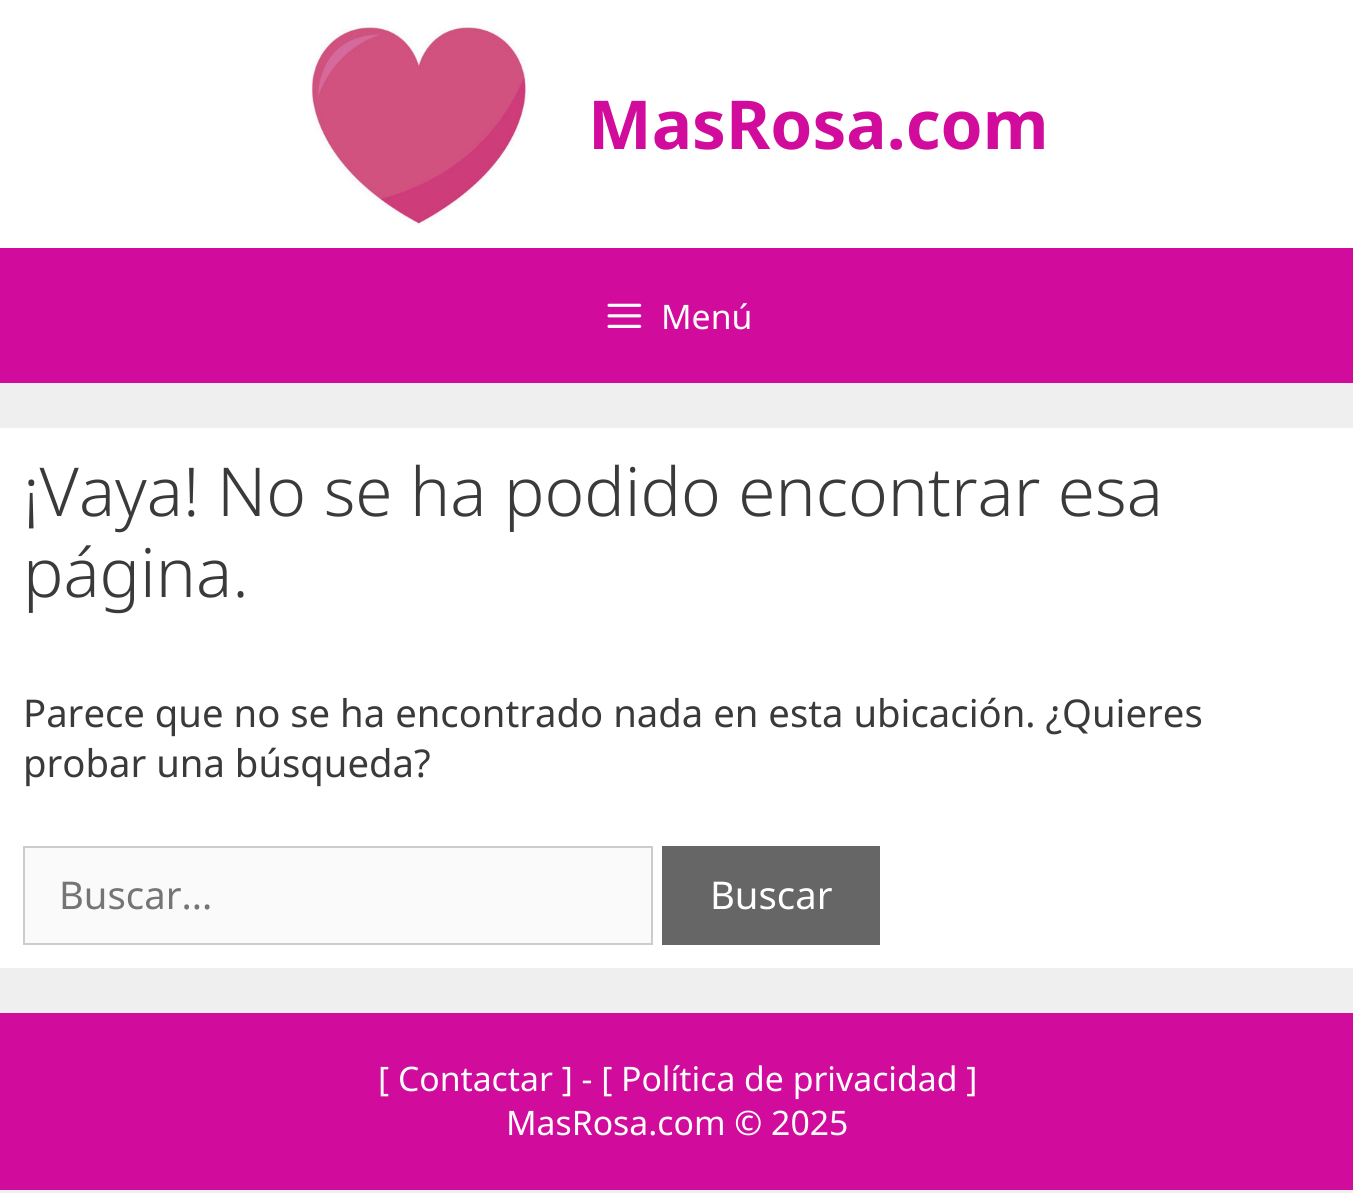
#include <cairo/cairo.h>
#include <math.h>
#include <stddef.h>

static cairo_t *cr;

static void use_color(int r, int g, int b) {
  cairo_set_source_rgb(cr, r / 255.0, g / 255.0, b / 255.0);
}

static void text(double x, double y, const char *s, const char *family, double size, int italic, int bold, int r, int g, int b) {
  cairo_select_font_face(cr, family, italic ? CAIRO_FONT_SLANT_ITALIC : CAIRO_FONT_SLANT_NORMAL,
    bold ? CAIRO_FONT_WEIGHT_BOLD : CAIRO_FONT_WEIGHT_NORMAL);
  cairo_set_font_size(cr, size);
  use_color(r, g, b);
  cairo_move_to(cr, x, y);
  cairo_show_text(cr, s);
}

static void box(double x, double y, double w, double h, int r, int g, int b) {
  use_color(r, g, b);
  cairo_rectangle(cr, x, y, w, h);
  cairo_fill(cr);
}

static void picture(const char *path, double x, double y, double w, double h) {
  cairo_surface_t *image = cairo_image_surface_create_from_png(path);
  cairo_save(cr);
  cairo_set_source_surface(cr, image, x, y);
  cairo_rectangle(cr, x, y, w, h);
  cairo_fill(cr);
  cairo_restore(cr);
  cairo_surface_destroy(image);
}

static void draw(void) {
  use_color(239, 239, 239);
  cairo_paint(cr);
  box(0, 0, 1353, 248, 255, 255, 255);
  picture("img_01.png", 311, 24, 218, 201);
  box(0, 248, 1353, 135, 209, 12, 156);
  picture("img_02.png", 607, 303, 35, 25);
  box(0, 428, 1353, 540, 255, 255, 255);
  use_color(250, 250, 250);
  cairo_rectangle(cr, 24, 847, 628, 97);
  cairo_fill_preserve(cr);
  use_color(204, 204, 204);
  cairo_stroke(cr);
  box(662, 846, 218, 99, 102, 102, 102);
  box(0, 1013, 1353, 177, 209, 12, 156);
  text(588, 149, "MasRosa.com", "Noto Sans", 67.5, 0, 1, 209, 12, 156);
  text(661, 329, "Menú", "Noto Sans", 33.75, 0, 0, 255, 255, 255);
  text(23, 516, "¡Vaya! No se ha podido encontrar esa", "Noto Sans Light", 67.5, 0, 0, 58, 58, 58);
  text(23, 597, "página.", "Noto Sans Light", 67.5, 0, 0, 58, 58, 58);
  text(23, 727, "Parece que no se ha encontrado nada en esta ubicación. ¿Quieres", "Noto Sans", 38.25, 0, 0, 58, 58, 58);
  text(23, 777, "probar una búsqueda?", "Noto Sans", 38.25, 0, 0, 58, 58, 58);
  text(59, 909, "Buscar...", "Noto Sans", 38.25, 0, 0, 117, 117, 117);
  text(710, 909, "Buscar", "Noto Sans", 38.25, 0, 0, 255, 255, 255);
  text(378, 1091, "[ Contactar ] - [ Política de privacidad ]", "Noto Sans", 33.75, 0, 0, 255, 255, 255);
  text(506, 1135, "MasRosa.com © 2025", "Noto Sans", 33.75, 0, 0, 255, 255, 255);
}

int main(void) {
  cairo_surface_t *surface = cairo_image_surface_create(CAIRO_FORMAT_RGB24, 1353, 1193);
  cr = cairo_create(surface);
  cairo_font_options_t *options = cairo_font_options_create();
  cairo_font_options_set_hint_metrics(options, CAIRO_HINT_METRICS_OFF);
  cairo_font_options_set_hint_style(options, CAIRO_HINT_STYLE_NONE);
  cairo_set_font_options(cr, options);
  cairo_set_miter_limit(cr, 4);
  draw();
  cairo_surface_write_to_png(surface, "out.png");
  cairo_font_options_destroy(options);
  cairo_destroy(cr);
  cairo_surface_destroy(surface);
  return 0;
}
